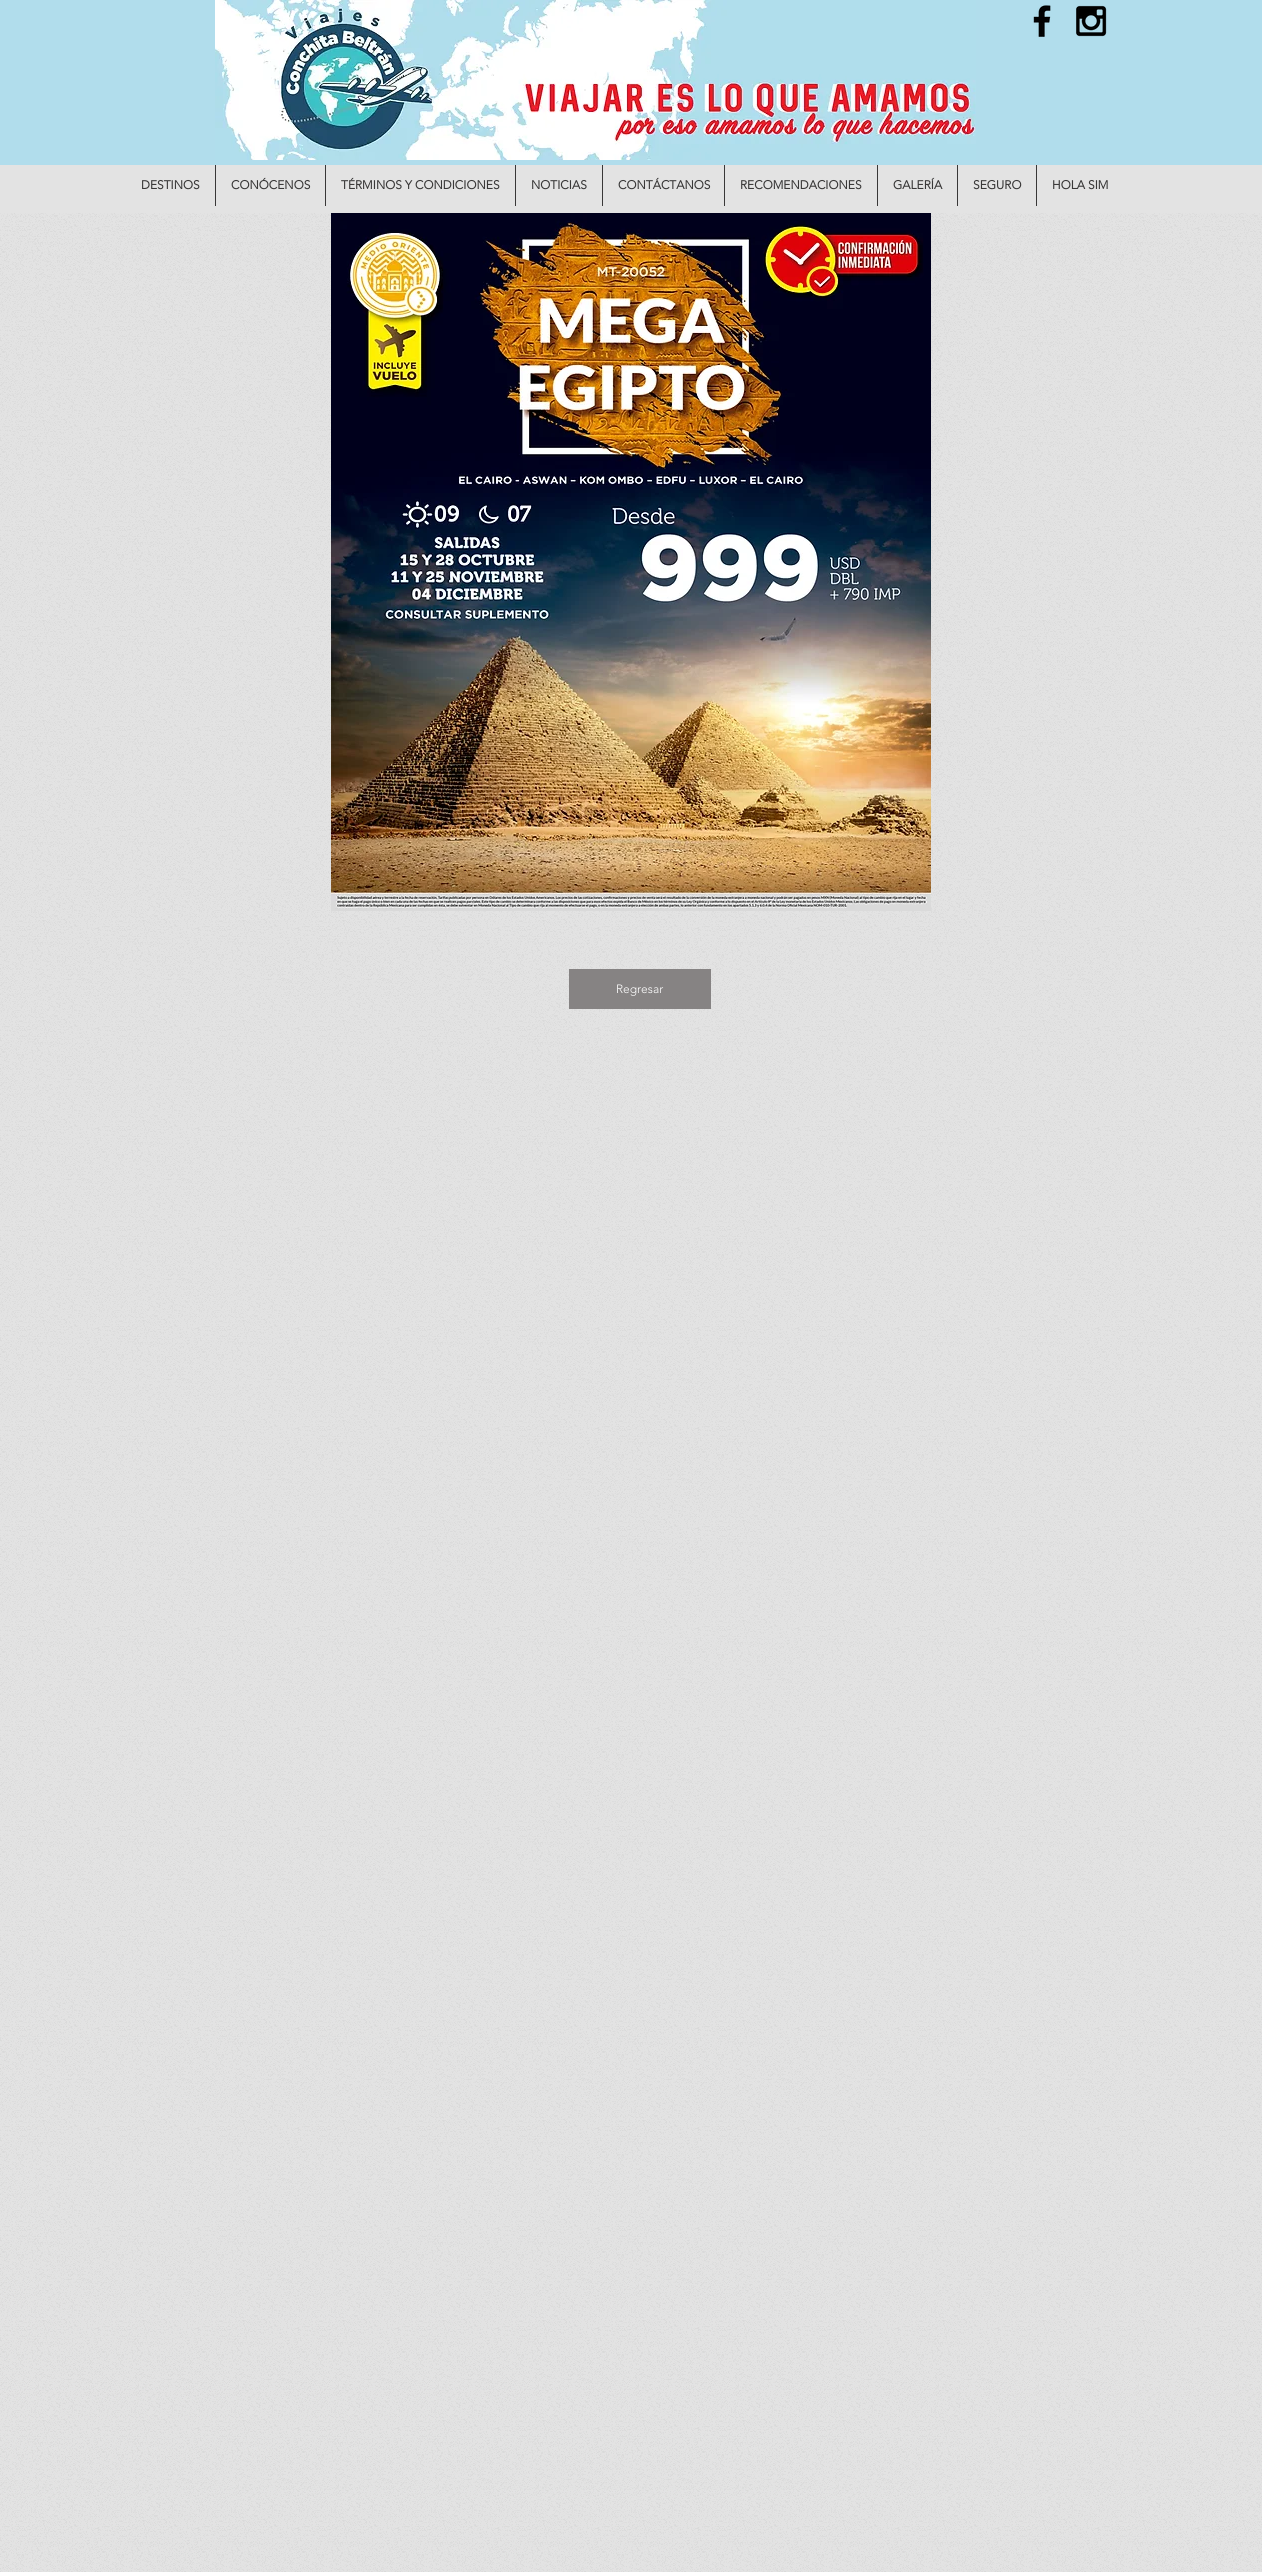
#include <cairo/cairo.h>
#include <math.h>
#include <stddef.h>

static cairo_t *cr;

static void use_color(int r, int g, int b) {
  cairo_set_source_rgb(cr, r / 255.0, g / 255.0, b / 255.0);
}

static void text(double x, double y, const char *s, const char *family, double size, int italic, int bold, int r, int g, int b) {
  cairo_select_font_face(cr, family, italic ? CAIRO_FONT_SLANT_ITALIC : CAIRO_FONT_SLANT_NORMAL,
    bold ? CAIRO_FONT_WEIGHT_BOLD : CAIRO_FONT_WEIGHT_NORMAL);
  cairo_set_font_size(cr, size);
  use_color(r, g, b);
  cairo_move_to(cr, x, y);
  cairo_show_text(cr, s);
}

static void box(double x, double y, double w, double h, int r, int g, int b) {
  use_color(r, g, b);
  cairo_rectangle(cr, x, y, w, h);
  cairo_fill(cr);
}

static void picture(const char *path, double x, double y, double w, double h) {
  cairo_surface_t *image = cairo_image_surface_create_from_png(path);
  cairo_save(cr);
  cairo_set_source_surface(cr, image, x, y);
  cairo_rectangle(cr, x, y, w, h);
  cairo_fill(cr);
  cairo_restore(cr);
  cairo_surface_destroy(image);
}

static void draw(void) {
  use_color(227, 227, 227);
  cairo_paint(cr);
  box(0, 0, 1262, 165, 177, 221, 236);
  picture("img_01.png", 215, 0, 761, 160);
  picture("img_02.png", 1033, 5, 18, 32);
  picture("img_03.png", 1076, 5, 31, 32);
  box(215, 165, 1, 41, 57, 56, 56);
  box(325, 165, 1, 41, 57, 56, 56);
  box(515, 165, 1, 41, 57, 56, 56);
  box(602, 165, 1, 41, 57, 56, 56);
  box(724, 165, 1, 41, 57, 56, 56);
  box(877, 165, 1, 41, 57, 56, 56);
  box(957, 165, 1, 41, 57, 56, 56);
  box(1036, 165, 1, 41, 57, 56, 56);
  picture("img_05.png", 0, 213, 1262, 2359);
  picture("img_04.png", 331, 213, 600, 698);
  box(569, 969, 142, 40, 134, 131, 131);
  text(141, 189, "DESTINOS", "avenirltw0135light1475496", 12, 0, 1, 57, 56, 56);
  text(231, 189, "CONÓCENOS", "avenirltw0135light1475496", 12, 0, 1, 57, 56, 56);
  text(341, 189, "TÉRMINOS Y CONDICIONES", "avenirltw0135light1475496", 12, 0, 1, 57, 56, 56);
  text(531, 189, "NOTICIAS", "avenirltw0135light1475496", 12, 0, 1, 57, 56, 56);
  text(618, 189, "CONTÁCTANOS", "avenirltw0135light1475496", 12, 0, 1, 57, 56, 56);
  text(740, 189, "RECOMENDACIONES", "avenirltw0135light1475496", 12, 0, 1, 57, 56, 56);
  text(893, 189, "GALERÍA", "avenirltw0135light1475496", 12, 0, 1, 57, 56, 56);
  text(973, 189, "SEGURO", "avenirltw0135light1475496", 12, 0, 1, 57, 56, 56);
  text(1052, 189, "HOLA SIM", "avenirltw0135light1475496", 12, 0, 1, 57, 56, 56);
  text(616, 993, "Regresar", "avenirltw0135light1475496 Light", 12, 0, 0, 255, 255, 255);
}

int main(void) {
  cairo_surface_t *surface = cairo_image_surface_create(CAIRO_FORMAT_RGB24, 1262, 2572);
  cr = cairo_create(surface);
  cairo_font_options_t *options = cairo_font_options_create();
  cairo_font_options_set_hint_metrics(options, CAIRO_HINT_METRICS_OFF);
  cairo_font_options_set_hint_style(options, CAIRO_HINT_STYLE_NONE);
  cairo_set_font_options(cr, options);
  cairo_set_miter_limit(cr, 4);
  draw();
  cairo_surface_write_to_png(surface, "out.png");
  cairo_font_options_destroy(options);
  cairo_destroy(cr);
  cairo_surface_destroy(surface);
  return 0;
}
